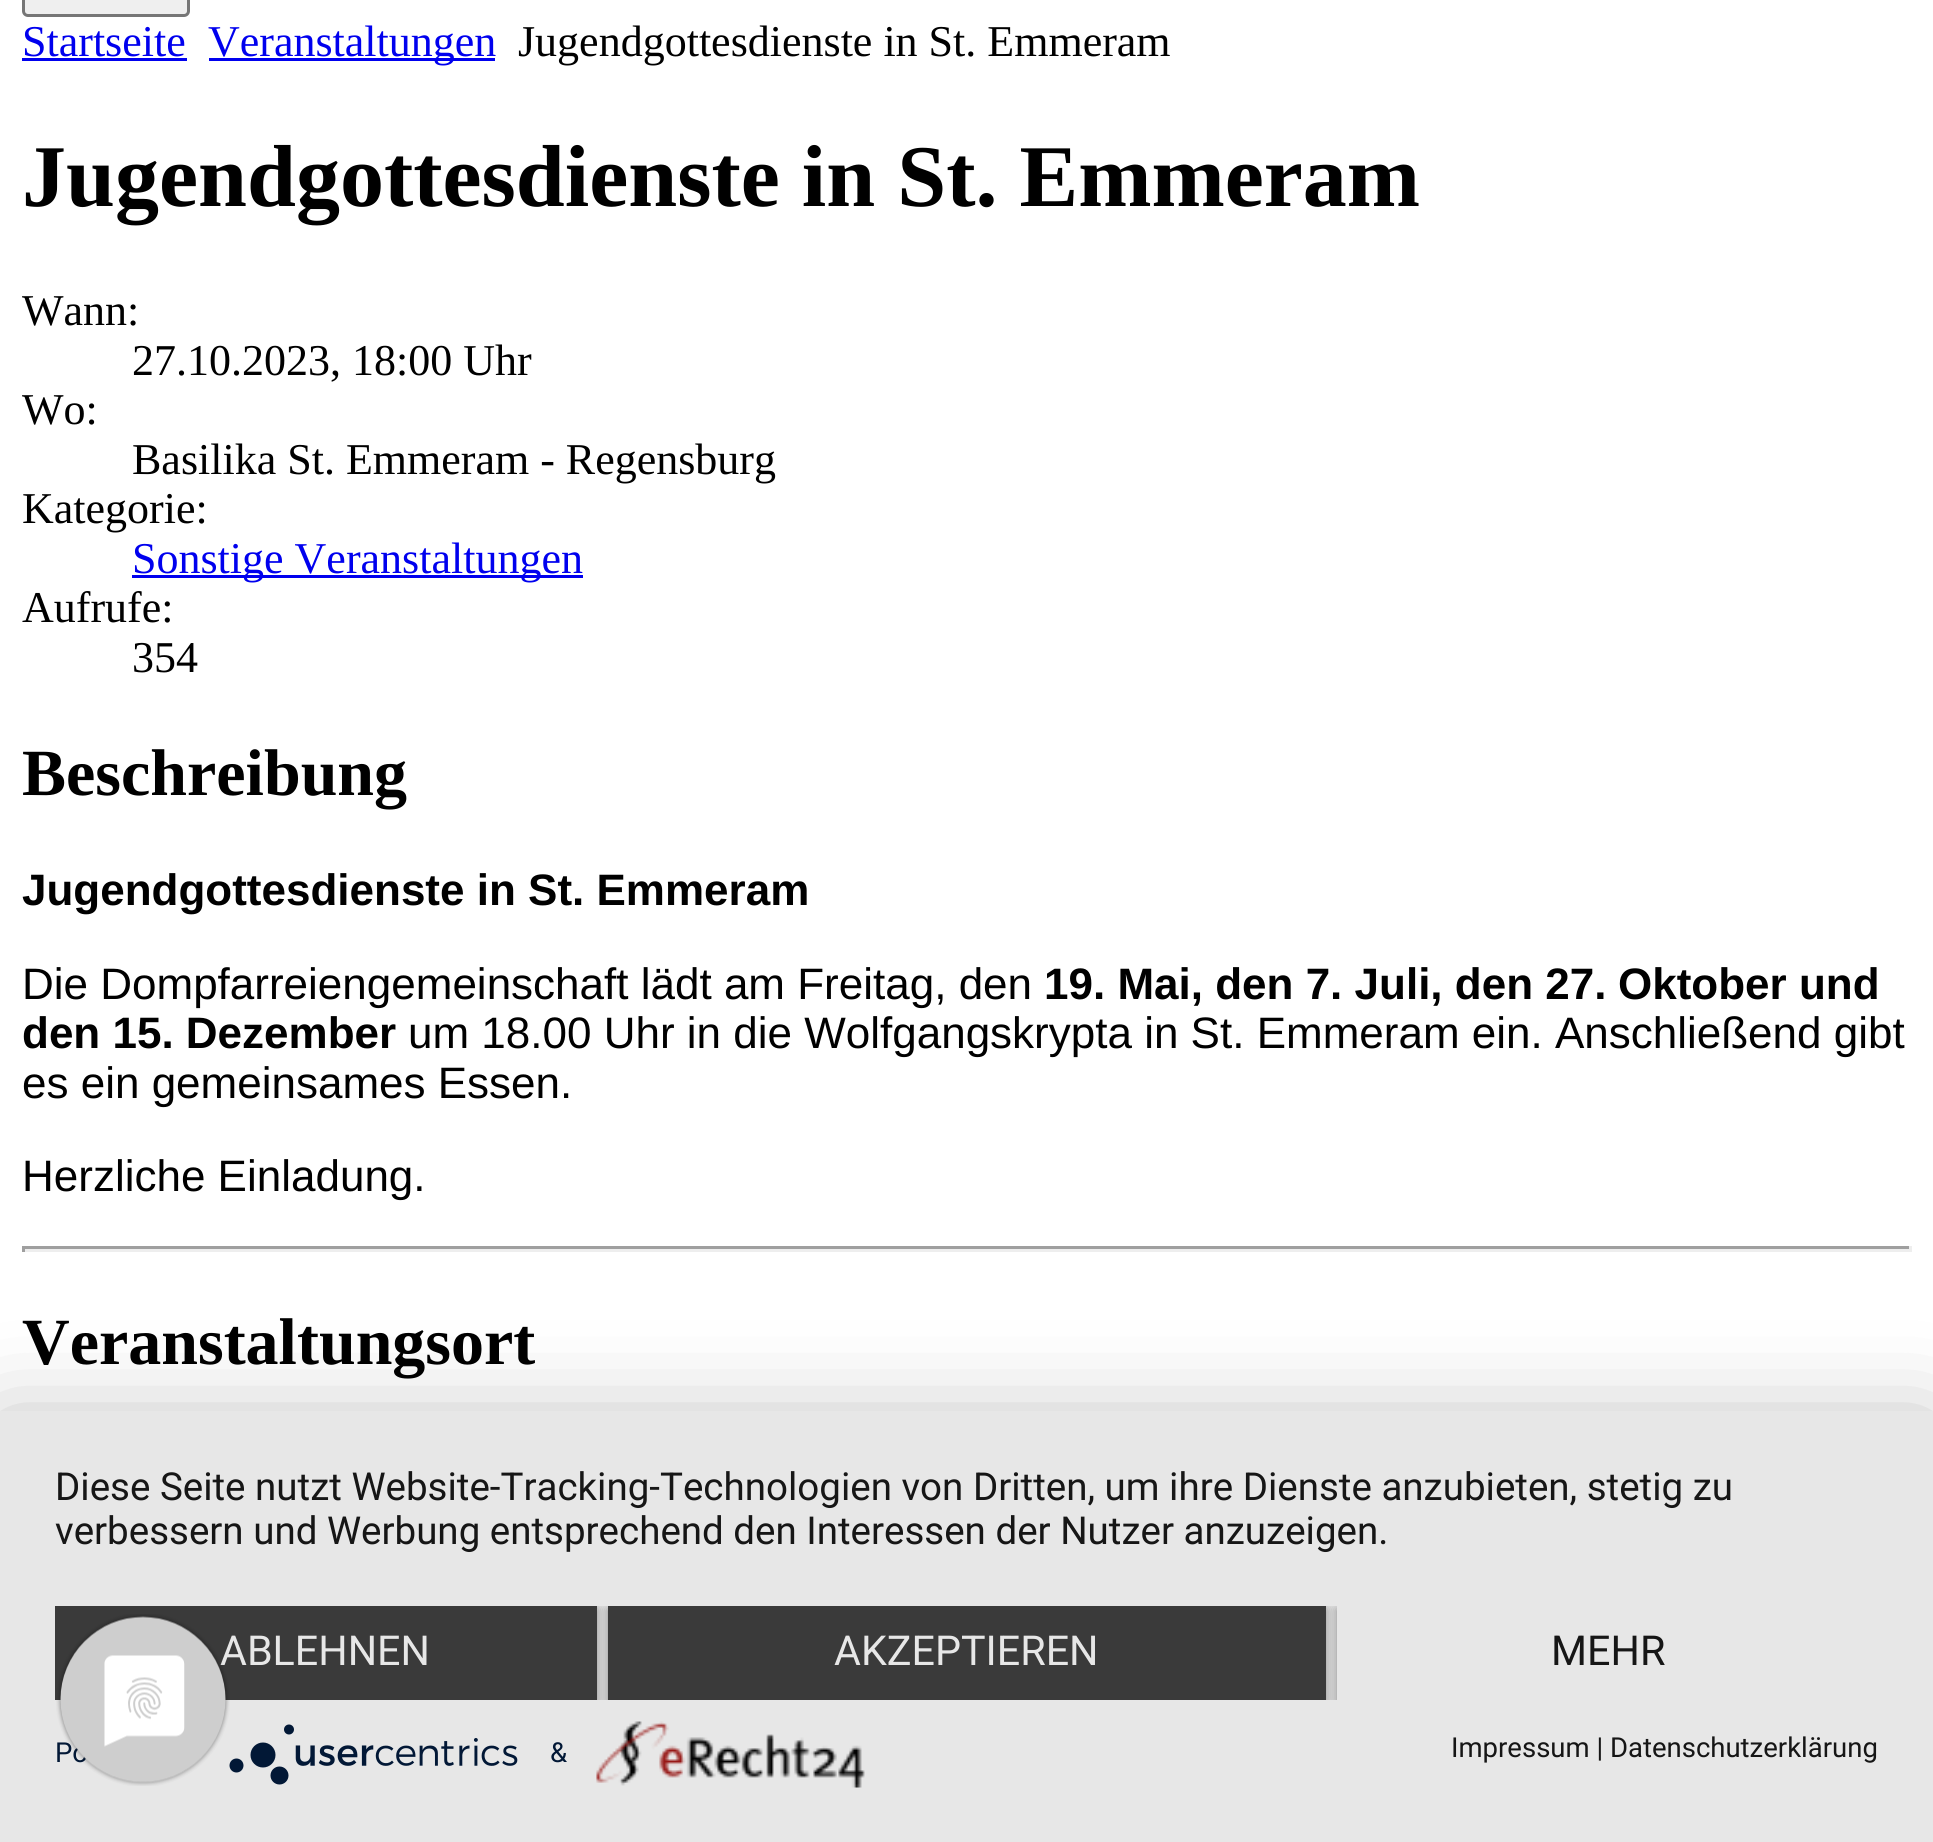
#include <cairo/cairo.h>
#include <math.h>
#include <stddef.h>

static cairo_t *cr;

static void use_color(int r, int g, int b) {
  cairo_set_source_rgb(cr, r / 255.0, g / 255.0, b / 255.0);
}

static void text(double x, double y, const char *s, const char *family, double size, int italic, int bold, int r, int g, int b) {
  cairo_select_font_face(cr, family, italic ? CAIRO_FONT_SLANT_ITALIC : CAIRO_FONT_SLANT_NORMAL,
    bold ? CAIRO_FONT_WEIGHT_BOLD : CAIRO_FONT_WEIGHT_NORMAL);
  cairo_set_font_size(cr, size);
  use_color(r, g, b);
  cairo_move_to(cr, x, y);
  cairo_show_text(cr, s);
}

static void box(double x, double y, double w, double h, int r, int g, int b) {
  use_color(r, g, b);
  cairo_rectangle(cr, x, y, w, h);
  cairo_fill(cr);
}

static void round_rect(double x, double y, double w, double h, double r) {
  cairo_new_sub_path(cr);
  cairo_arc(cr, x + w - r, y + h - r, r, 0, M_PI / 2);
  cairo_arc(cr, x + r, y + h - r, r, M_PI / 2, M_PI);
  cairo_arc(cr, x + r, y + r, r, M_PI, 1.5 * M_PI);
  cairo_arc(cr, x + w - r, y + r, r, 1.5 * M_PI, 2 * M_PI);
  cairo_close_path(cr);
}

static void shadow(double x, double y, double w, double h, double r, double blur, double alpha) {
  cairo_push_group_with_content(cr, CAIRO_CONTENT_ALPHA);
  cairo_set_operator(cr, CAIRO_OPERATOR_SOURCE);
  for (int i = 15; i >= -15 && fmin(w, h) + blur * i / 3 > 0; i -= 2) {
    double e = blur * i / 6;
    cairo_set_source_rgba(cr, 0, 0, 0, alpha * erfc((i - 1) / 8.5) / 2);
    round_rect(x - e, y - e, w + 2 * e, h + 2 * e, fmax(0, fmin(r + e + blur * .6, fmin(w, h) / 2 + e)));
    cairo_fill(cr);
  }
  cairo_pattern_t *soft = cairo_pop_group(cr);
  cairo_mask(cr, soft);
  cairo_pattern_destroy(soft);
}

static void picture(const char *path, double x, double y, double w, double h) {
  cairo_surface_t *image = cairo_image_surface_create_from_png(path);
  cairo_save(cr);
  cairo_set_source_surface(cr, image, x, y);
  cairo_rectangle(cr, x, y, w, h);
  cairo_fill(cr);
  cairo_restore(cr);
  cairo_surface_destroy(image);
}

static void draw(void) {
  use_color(255, 255, 255);
  cairo_paint(cr);
  use_color(239, 239, 239);
  round_rect(23.5, -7.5, 165, 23, 4.5);
  cairo_fill_preserve(cr);
  use_color(118, 118, 118);
  cairo_set_line_width(cr, 3);
  cairo_stroke(cr);
  box(22, 58, 165, 3, 0, 0, 238);
  box(209, 58, 286, 3, 0, 0, 238);
  box(132, 575, 451, 3, 0, 0, 238);
  box(22, 1246, 1889, 3, 159, 159, 159);
  box(1909, 1246, 3, 6, 238, 238, 238);
  box(22, 1249, 1889, 3, 238, 238, 238);
  box(22, 1246, 3, 6, 159, 159, 159);
  use_color(0, 0, 0);
  shadow(0, 1427, 1933, 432, 0, 49.5, 0.3);
  box(0, 1411, 1933, 431, 231, 231, 231);
  cairo_save(cr);
  cairo_rectangle(cr, 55, 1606, 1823, 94);
  cairo_clip(cr);
  use_color(0, 0, 0);
  shadow(55, 1609, 542, 93, 0, 5.5, 0.4);
  cairo_restore(cr);
  box(55, 1606, 542, 94, 58, 58, 58);
  cairo_save(cr);
  cairo_rectangle(cr, 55, 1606, 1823, 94);
  cairo_clip(cr);
  use_color(0, 0, 0);
  shadow(608, 1609, 718, 93, 0, 5.5, 0.4);
  cairo_restore(cr);
  box(608, 1606, 718, 94, 58, 58, 58);
  cairo_save(cr);
  cairo_rectangle(cr, 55, 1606, 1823, 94);
  cairo_clip(cr);
  use_color(0, 0, 0);
  shadow(1337, 1609, 541, 93, 0, 5.5, 0.4);
  cairo_restore(cr);
  box(1337, 1606, 541, 94, 231, 231, 231);
  picture("img_01.png", 229, 1724, 289, 61);
  picture("img_02.png", 596, 1721, 269, 67);
  text(22, 56, "Startseite", "Liberation Serif", 44, 0, 0, 0, 0, 238);
  text(208, 56, "Veranstaltungen", "Liberation Serif", 44, 0, 0, 0, 0, 238);
  text(518, 56, "Jugendgottesdienste in St. Emmeram", "Liberation Serif", 44, 0, 0, 0, 0, 0);
  text(22, 206, "Jugendgottesdienste in St. Emmeram", "Liberation Serif", 88, 0, 1, 0, 0, 0);
  text(22, 325, "Wann:", "Liberation Serif", 44, 0, 0, 0, 0, 0);
  text(132, 375, "27.10.2023, 18:00 Uhr", "Liberation Serif", 44, 0, 0, 0, 0, 0);
  text(22, 424, "Wo:", "Liberation Serif", 44, 0, 0, 0, 0, 0);
  text(132, 474, "Basilika St. Emmeram - Regensburg", "Liberation Serif", 44, 0, 0, 0, 0, 0);
  text(22, 523, "Kategorie:", "Liberation Serif", 44, 0, 0, 0, 0, 0);
  text(132, 573, "Sonstige Veranstaltungen", "Liberation Serif", 44, 0, 0, 0, 0, 238);
  text(22, 622, "Aufrufe:", "Liberation Serif", 44, 0, 0, 0, 0, 0);
  text(132, 672, "354", "Liberation Serif", 44, 0, 0, 0, 0, 0);
  text(22, 795, "Beschreibung", "Liberation Serif", 66, 0, 1, 0, 0, 0);
  text(22, 905, "Jugendgottesdienste in St. Emmeram", "Liberation Sans", 44, 0, 1, 0, 0, 0);
  text(22, 999, "Die Dompfarreiengemeinschaft lädt am Freitag, den", "Liberation Sans", 44, 0, 0, 0, 0, 0);
  text(1044, 999, "19. Mai, den 7. Juli, den 27.", "Liberation Sans", 44, 0, 1, 0, 0, 0);
  text(1618, 999, "Oktober und", "Liberation Sans", 44, 0, 1, 0, 0, 0);
  text(22, 1048, "den 15. Dezember", "Liberation Sans", 44, 0, 1, 0, 0, 0);
  text(408, 1048, "um 18.00 Uhr in die Wolfgangskrypta in St. Emmeram ein. Anschließend gibt", "Liberation Sans", 44, 0, 0, 0, 0, 0);
  text(22, 1098, "es ein gemeinsames Essen.", "Liberation Sans", 44, 0, 0, 0, 0, 0);
  text(22, 1191, "Herzliche Einladung.", "Liberation Sans", 44, 0, 0, 0, 0, 0);
  text(22, 1364, "Veranstaltungsort", "Liberation Serif", 66, 0, 1, 0, 0, 0);
  text(55, 1500, "Diese Seite nutzt Website-Tracking-Technologien von Dritten, um ihre Dienste anzubieten, stetig zu", "Roboto", 38.5, 0, 0, 22, 22, 22);
  text(55, 1544, "verbessern und Werbung entsprechend den Interessen der Nutzer anzuzeigen.", "Roboto", 38.5, 0, 0, 22, 22, 22);
  text(220, 1665, "ABLEHNEN", "Roboto", 41.25, 0, 0, 231, 231, 231);
  text(834, 1665, "AKZEPTIEREN", "Roboto", 41.25, 0, 0, 231, 231, 231);
  text(1551, 1665, "MEHR", "Roboto", 41.25, 0, 0, 22, 22, 22);
  text(55, 1762, "Po", "Roboto", 27.5, 0, 0, 2, 24, 54);
  text(550, 1762, "&", "Roboto", 27.5, 0, 0, 2, 24, 54);
  text(1451, 1757, "Impressum | Datenschutzerklärung", "Roboto", 27.5, 0, 0, 22, 22, 22);
  picture("img_03.png", 56, 1614, 174, 172);
}

int main(void) {
  cairo_surface_t *surface = cairo_image_surface_create(CAIRO_FORMAT_RGB24, 1933, 1842);
  cr = cairo_create(surface);
  cairo_font_options_t *options = cairo_font_options_create();
  cairo_font_options_set_hint_metrics(options, CAIRO_HINT_METRICS_OFF);
  cairo_font_options_set_hint_style(options, CAIRO_HINT_STYLE_NONE);
  cairo_set_font_options(cr, options);
  cairo_set_miter_limit(cr, 4);
  draw();
  cairo_surface_write_to_png(surface, "out.png");
  cairo_font_options_destroy(options);
  cairo_destroy(cr);
  cairo_surface_destroy(surface);
  return 0;
}
